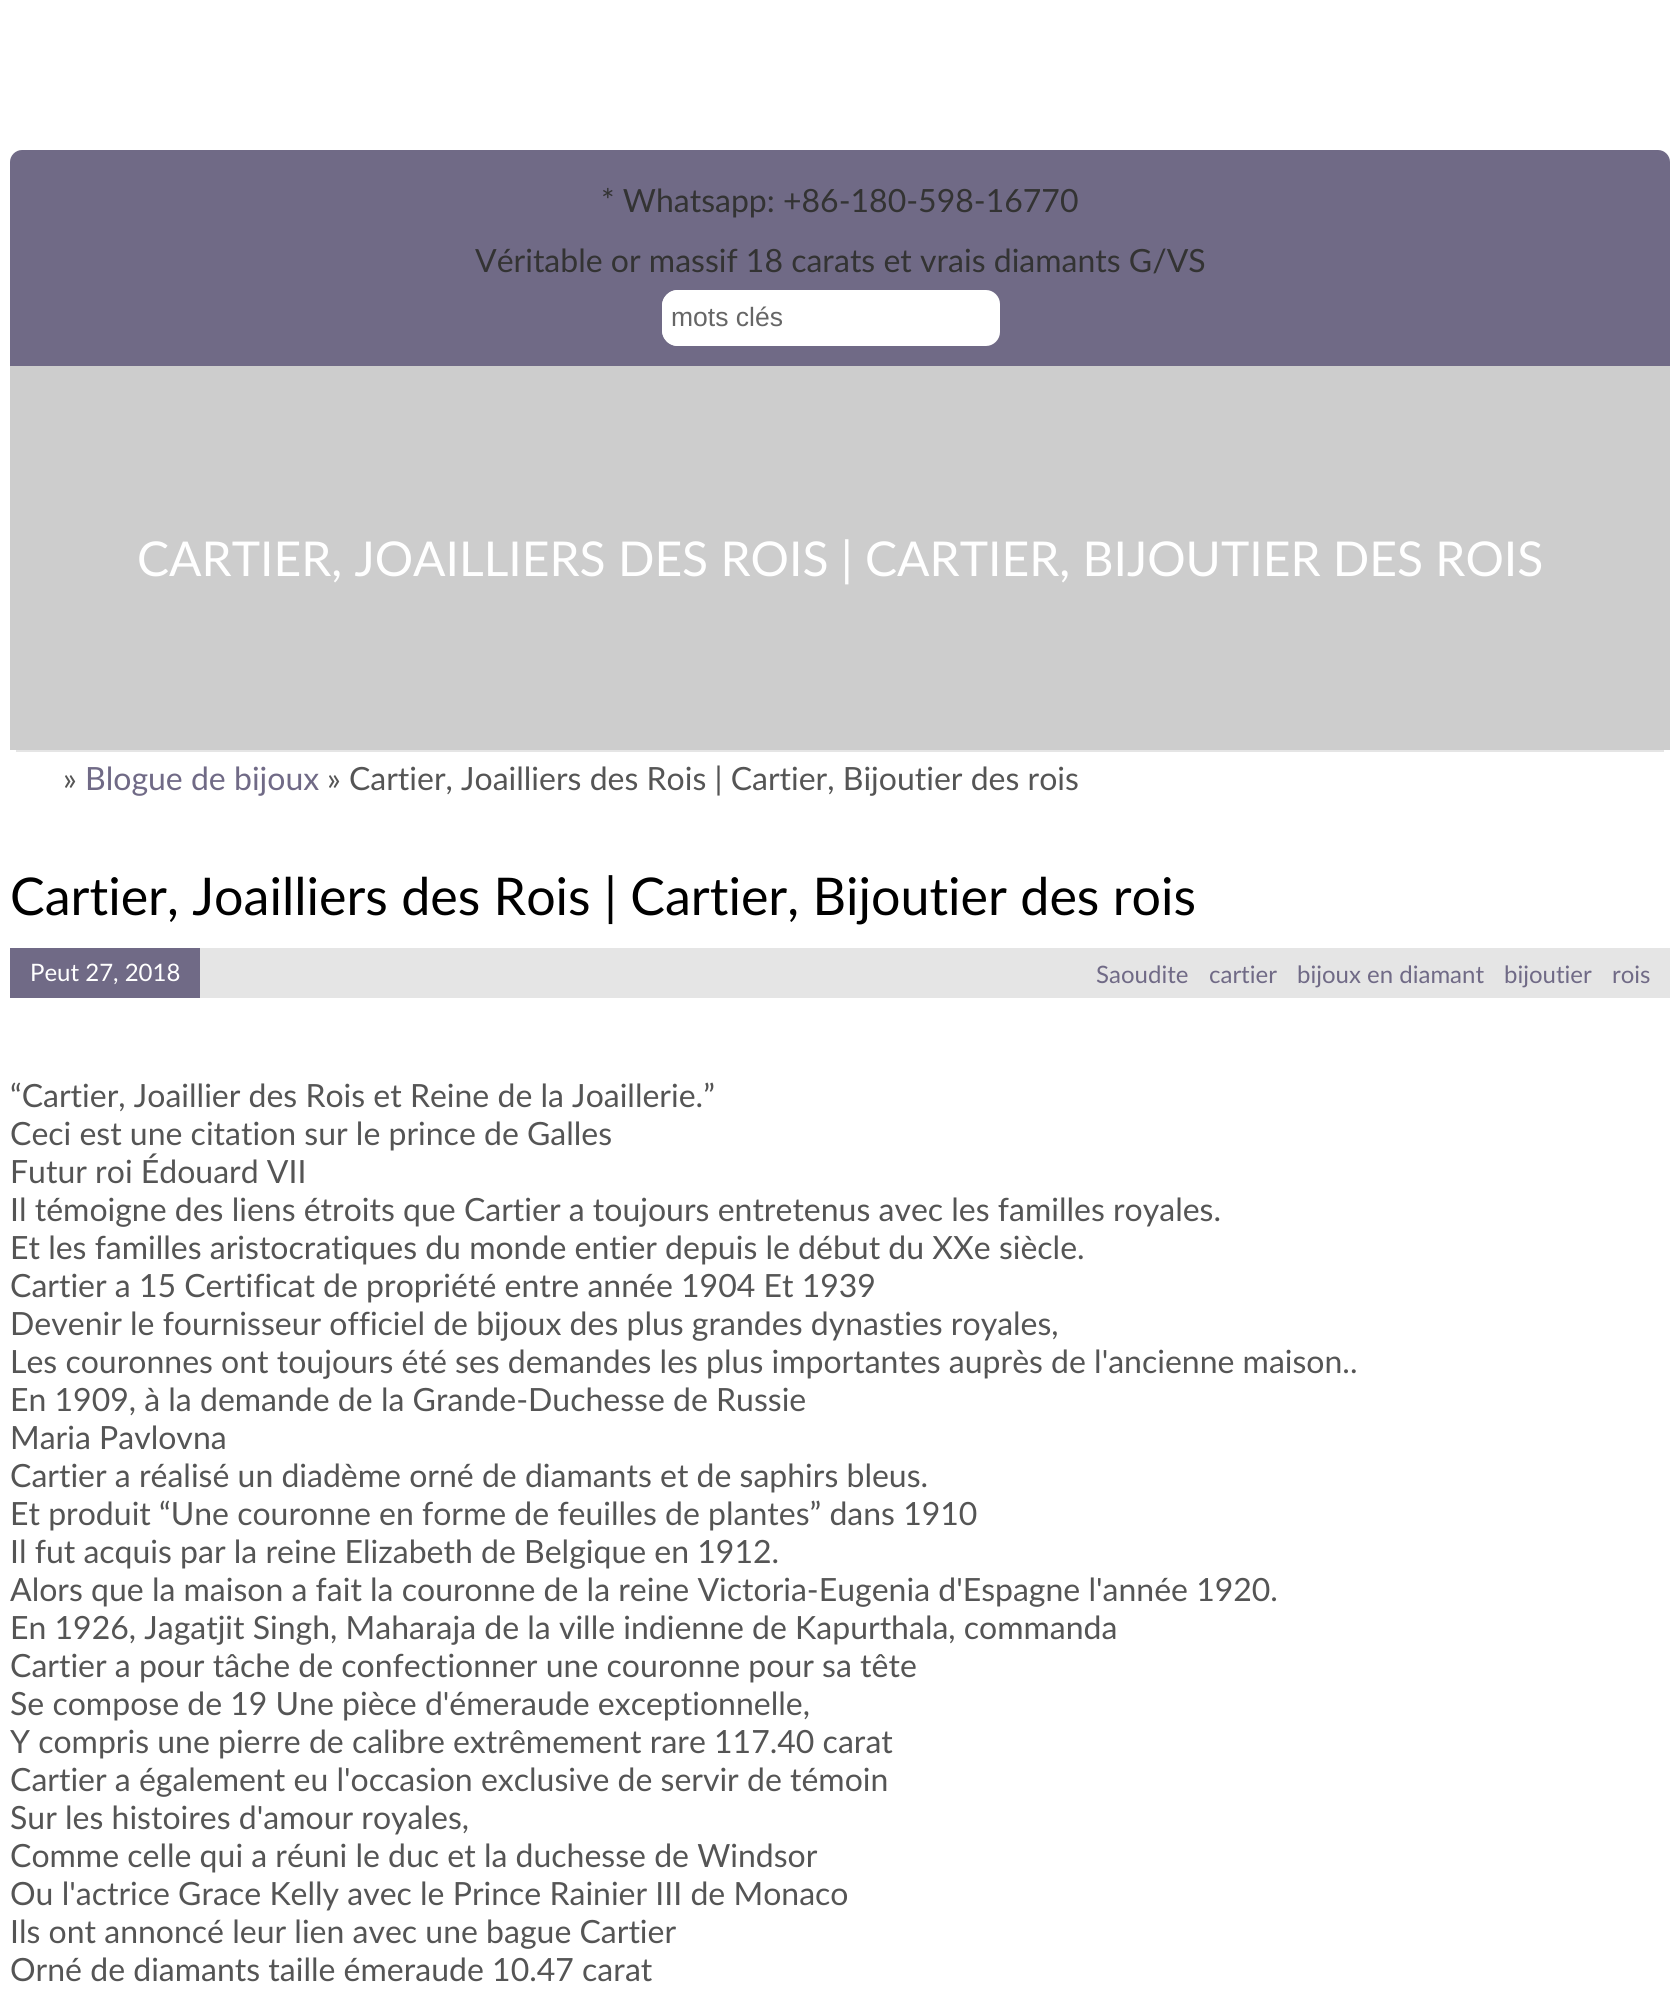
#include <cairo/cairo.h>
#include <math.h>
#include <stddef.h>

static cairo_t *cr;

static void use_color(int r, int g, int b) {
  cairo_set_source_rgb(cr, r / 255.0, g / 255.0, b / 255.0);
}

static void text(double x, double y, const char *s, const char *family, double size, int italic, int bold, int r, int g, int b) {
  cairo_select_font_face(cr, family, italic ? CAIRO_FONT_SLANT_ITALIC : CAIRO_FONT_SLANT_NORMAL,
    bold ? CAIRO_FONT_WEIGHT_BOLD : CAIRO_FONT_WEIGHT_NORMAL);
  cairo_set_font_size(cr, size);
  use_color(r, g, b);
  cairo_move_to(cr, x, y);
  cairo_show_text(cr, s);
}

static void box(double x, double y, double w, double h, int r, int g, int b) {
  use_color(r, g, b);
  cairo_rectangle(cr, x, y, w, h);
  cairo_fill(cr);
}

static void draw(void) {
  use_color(255, 255, 255);
  cairo_paint(cr);
  use_color(112, 106, 134);
  cairo_new_path(cr);
  cairo_move_to(cr, 22, 150);
  cairo_line_to(cr, 1658, 150);
  cairo_curve_to(cr, 1664.5, 150, 1670, 155.5, 1670, 162);
  cairo_line_to(cr, 1670, 366);
  cairo_line_to(cr, 10, 366);
  cairo_line_to(cr, 10, 162);
  cairo_curve_to(cr, 10, 155.5, 15.5, 150, 22, 150);
  cairo_close_path(cr);
  cairo_fill(cr);
  use_color(255, 255, 255);
  cairo_new_path(cr);
  cairo_move_to(cr, 678, 290);
  cairo_line_to(cr, 920, 290);
  cairo_line_to(cr, 920, 346);
  cairo_line_to(cr, 678, 346);
  cairo_curve_to(cr, 669, 346, 662, 339, 662, 330);
  cairo_line_to(cr, 662, 306);
  cairo_curve_to(cr, 662, 297, 669, 290, 678, 290);
  cairo_close_path(cr);
  cairo_fill(cr);
  cairo_set_fill_rule(cr, CAIRO_FILL_RULE_EVEN_ODD);
  cairo_new_path(cr);
  cairo_move_to(cr, 678, 290);
  cairo_line_to(cr, 920, 290);
  cairo_line_to(cr, 920, 346);
  cairo_line_to(cr, 678, 346);
  cairo_curve_to(cr, 669, 346, 662, 339, 662, 330);
  cairo_line_to(cr, 662, 306);
  cairo_curve_to(cr, 662, 297, 669, 290, 678, 290);
  cairo_close_path(cr);
  cairo_move_to(cr, 678, 292);
  cairo_line_to(cr, 920, 292);
  cairo_line_to(cr, 920, 344);
  cairo_line_to(cr, 678, 344);
  cairo_curve_to(cr, 670, 344, 664, 338, 664, 330);
  cairo_line_to(cr, 664, 306);
  cairo_curve_to(cr, 664, 298, 670, 292, 678, 292);
  cairo_close_path(cr);
  cairo_fill(cr);
  cairo_new_path(cr);
  cairo_move_to(cr, 921, 291);
  cairo_line_to(cr, 986, 291);
  cairo_curve_to(cr, 993, 291, 999, 297, 999, 304);
  cairo_line_to(cr, 999, 332);
  cairo_curve_to(cr, 999, 339, 993, 345, 986, 345);
  cairo_line_to(cr, 921, 345);
  cairo_close_path(cr);
  cairo_fill_preserve(cr);
  cairo_stroke(cr);
  box(16, 750, 1648, 2, 229, 229, 229);
  box(10, 366, 1660, 384, 205, 205, 205);
  box(200, 948, 1470, 50, 229, 229, 229);
  box(10, 948, 190, 50, 112, 106, 134);
  text(601, 212, "* Whatsapp: +86-180-598-16770", "Lato", 32, 0, 0, 51, 51, 51);
  text(475, 272, "Véritable or massif 18 carats et vrais diamants G/VS", "Lato", 32, 0, 0, 51, 51, 51);
  text(671, 326, "mots clés", "Liberation Sans", 26.5, 0, 0, 102, 102, 102);
  text(137, 576, "CARTIER, JOAILLIERS DES ROIS | CARTIER, BIJOUTIER DES ROIS", "Lato", 48, 0, 0, 255, 255, 255);
  text(63, 790, "»", "Lato", 32, 0, 0, 85, 85, 85);
  text(85, 790, "Blogue de bijoux", "Lato", 32, 0, 0, 112, 106, 134);
  text(327, 790, "» Cartier, Joailliers des Rois | Cartier, Bijoutier des rois", "Lato", 32, 0, 0, 85, 85, 85);
  text(10, 915, "Cartier, Joailliers des Rois | Cartier, Bijoutier des rois", "Lato", 52, 0, 0, 0, 0, 0);
  text(30, 981, "Peut 27, 2018", "Lato", 24, 0, 0, 255, 255, 255);
  text(1096, 983, "Saoudite", "Lato", 24, 0, 0, 112, 106, 134);
  text(1209, 983, "cartier", "Lato", 24, 0, 0, 112, 106, 134);
  text(1297, 983, "bijoux en diamant", "Lato", 24, 0, 0, 112, 106, 134);
  text(1504, 983, "bijoutier", "Lato", 24, 0, 0, 112, 106, 134);
  text(1612, 983, "rois", "Lato", 24, 0, 0, 112, 106, 134);
  text(10, 1107, "“Cartier, Joaillier des Rois et Reine de la Joaillerie.”", "Lato", 32, 0, 0, 85, 85, 85);
  text(10, 1145, "Ceci est une citation sur le prince de Galles", "Lato", 32, 0, 0, 85, 85, 85);
  text(10, 1183, "Futur roi Édouard VII", "Lato", 32, 0, 0, 85, 85, 85);
  text(10, 1221, "Il témoigne des liens étroits que Cartier a toujours entretenus avec les familles royales.", "Lato", 32, 0, 0, 85, 85, 85);
  text(10, 1259, "Et les familles aristocratiques du monde entier depuis le début du XXe siècle.", "Lato", 32, 0, 0, 85, 85, 85);
  text(10, 1297, "Cartier a 15 Certificat de propriété entre année 1904 Et 1939", "Lato", 32, 0, 0, 85, 85, 85);
  text(10, 1335, "Devenir le fournisseur officiel de bijoux des plus grandes dynasties royales,", "Lato", 32, 0, 0, 85, 85, 85);
  text(10, 1373, "Les couronnes ont toujours été ses demandes les plus importantes auprès de l'ancienne maison..", "Lato", 32, 0, 0, 85, 85, 85);
  text(10, 1411, "En 1909, à la demande de la Grande-Duchesse de Russie", "Lato", 32, 0, 0, 85, 85, 85);
  text(10, 1449, "Maria Pavlovna", "Lato", 32, 0, 0, 85, 85, 85);
  text(10, 1487, "Cartier a réalisé un diadème orné de diamants et de saphirs bleus.", "Lato", 32, 0, 0, 85, 85, 85);
  text(10, 1525, "Et produit “Une couronne en forme de feuilles de plantes” dans 1910", "Lato", 32, 0, 0, 85, 85, 85);
  text(10, 1563, "Il fut acquis par la reine Elizabeth de Belgique en 1912.", "Lato", 32, 0, 0, 85, 85, 85);
  text(10, 1601, "Alors que la maison a fait la couronne de la reine Victoria-Eugenia d'Espagne l'année 1920.", "Lato", 32, 0, 0, 85, 85, 85);
  text(10, 1639, "En 1926, Jagatjit Singh, Maharaja de la ville indienne de Kapurthala, commanda", "Lato", 32, 0, 0, 85, 85, 85);
  text(10, 1677, "Cartier a pour tâche de confectionner une couronne pour sa tête", "Lato", 32, 0, 0, 85, 85, 85);
  text(10, 1715, "Se compose de 19 Une pièce d'émeraude exceptionnelle,", "Lato", 32, 0, 0, 85, 85, 85);
  text(10, 1753, "Y compris une pierre de calibre extrêmement rare 117.40 carat", "Lato", 32, 0, 0, 85, 85, 85);
  text(10, 1791, "Cartier a également eu l'occasion exclusive de servir de témoin", "Lato", 32, 0, 0, 85, 85, 85);
  text(10, 1829, "Sur les histoires d'amour royales,", "Lato", 32, 0, 0, 85, 85, 85);
  text(10, 1867, "Comme celle qui a réuni le duc et la duchesse de Windsor", "Lato", 32, 0, 0, 85, 85, 85);
  text(10, 1905, "Ou l'actrice Grace Kelly avec le Prince Rainier III de Monaco", "Lato", 32, 0, 0, 85, 85, 85);
  text(10, 1943, "Ils ont annoncé leur lien avec une bague Cartier", "Lato", 32, 0, 0, 85, 85, 85);
  text(10, 1981, "Orné de diamants taille émeraude 10.47 carat", "Lato", 32, 0, 0, 85, 85, 85);
}

int main(void) {
  cairo_surface_t *surface = cairo_image_surface_create(CAIRO_FORMAT_RGB24, 1679, 2009);
  cr = cairo_create(surface);
  cairo_font_options_t *options = cairo_font_options_create();
  cairo_font_options_set_hint_metrics(options, CAIRO_HINT_METRICS_OFF);
  cairo_font_options_set_hint_style(options, CAIRO_HINT_STYLE_NONE);
  cairo_set_font_options(cr, options);
  cairo_set_miter_limit(cr, 4);
  draw();
  cairo_surface_write_to_png(surface, "out.png");
  cairo_font_options_destroy(options);
  cairo_destroy(cr);
  cairo_surface_destroy(surface);
  return 0;
}
